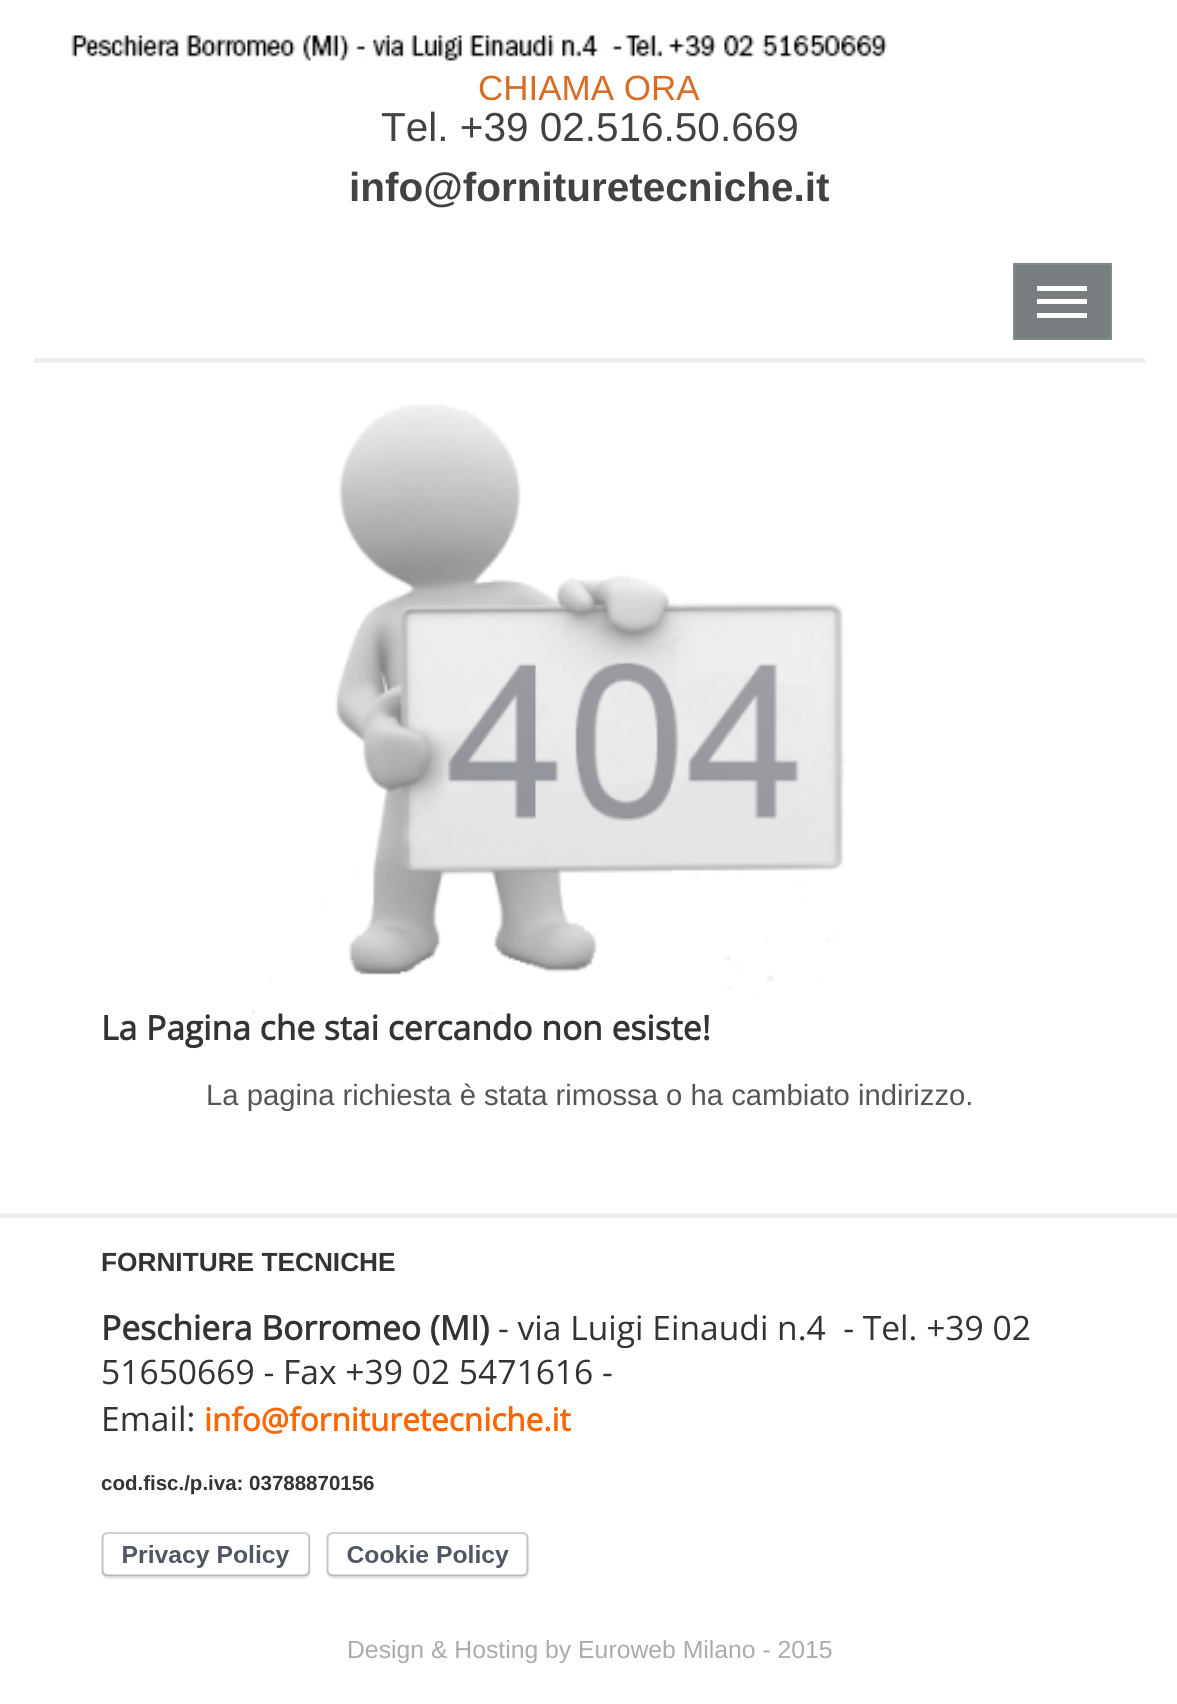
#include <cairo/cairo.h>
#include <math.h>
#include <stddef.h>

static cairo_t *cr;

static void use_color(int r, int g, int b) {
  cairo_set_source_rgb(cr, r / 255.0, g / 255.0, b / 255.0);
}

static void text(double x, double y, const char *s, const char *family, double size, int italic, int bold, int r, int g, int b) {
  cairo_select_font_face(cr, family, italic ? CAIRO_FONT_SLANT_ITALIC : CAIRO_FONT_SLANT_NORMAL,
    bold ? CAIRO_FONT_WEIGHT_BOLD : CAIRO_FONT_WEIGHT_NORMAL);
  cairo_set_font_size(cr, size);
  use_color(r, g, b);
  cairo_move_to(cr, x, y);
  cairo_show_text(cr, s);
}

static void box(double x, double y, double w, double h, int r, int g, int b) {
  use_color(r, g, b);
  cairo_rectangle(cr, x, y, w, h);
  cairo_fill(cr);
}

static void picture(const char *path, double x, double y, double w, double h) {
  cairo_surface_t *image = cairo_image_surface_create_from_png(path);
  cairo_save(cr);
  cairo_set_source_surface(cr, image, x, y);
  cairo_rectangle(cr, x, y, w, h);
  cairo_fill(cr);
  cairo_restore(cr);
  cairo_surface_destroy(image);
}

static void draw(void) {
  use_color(255, 255, 255);
  cairo_paint(cr);
  picture("img_01.png", 71, 35, 817, 26);
  box(34, 358, 1111, 5, 238, 238, 238);
  use_color(120, 125, 128);
  cairo_rectangle(cr, 1014, 264, 97, 75);
  cairo_fill_preserve(cr);
  use_color(127, 140, 141);
  cairo_stroke(cr);
  box(1037, 286, 50, 5, 255, 255, 255);
  box(1037, 299, 50, 5, 255, 255, 255);
  box(1037, 313, 50, 5, 255, 255, 255);
  picture("img_02.png", 252, 404, 593, 610);
  box(0, 1213, 1177, 5, 238, 238, 238);
  picture("img_03.png", 101, 1532, 210, 47);
  picture("img_04.png", 326, 1532, 203, 47);
  text(478, 100, "CHIAMA ORA", "Liberation Sans", 35, 0, 0, 216, 108, 36);
  text(381, 141, "Tel. +39 02.516.50.669", "Liberation Sans", 40.5, 0, 0, 66, 66, 66);
  text(349, 201, "info@fornituretecniche.it", "Liberation Sans", 40.5, 0, 1, 66, 66, 66);
  text(101, 1040, "La Pagina che stai cercando non esiste!", "Open Sans", 33.6, 0, 1, 51, 51, 51);
  text(206, 1105, "La pagina richiesta è stata rimossa o ha cambiato indirizzo.", "Liberation Sans", 29.25, 0, 0, 85, 85, 85);
  text(101, 1271, "FORNITURE TECNICHE", "Liberation Sans", 26.25, 0, 1, 51, 51, 51);
  text(101, 1340, "Peschiera Borromeo (MI)", "Open Sans", 33.6, 0, 1, 51, 51, 51);
  text(498, 1340, "- via Luigi Einaudi n.4  - Tel. +39 02", "Open Sans", 33.6, 0, 0, 51, 51, 51);
  text(101, 1384, "51650669 - Fax +39 02 5471616 -", "Open Sans", 33.6, 0, 0, 51, 51, 51);
  text(101, 1431, "Email:", "Open Sans", 33.6, 0, 0, 51, 51, 51);
  text(204, 1431, "info@fornituretecniche.it", "Open Sans", 31.5, 0, 1, 255, 102, 0);
  text(101, 1490, "cod.fisc./p.iva: 03788870156", "Liberation Sans", 20.5, 0, 1, 51, 51, 51);
  text(347, 1658, "Design & Hosting by Euroweb Milano - 2015", "Liberation Sans", 24.75, 0, 0, 171, 171, 171);
}

int main(void) {
  cairo_surface_t *surface = cairo_image_surface_create(CAIRO_FORMAT_RGB24, 1177, 1704);
  cr = cairo_create(surface);
  cairo_font_options_t *options = cairo_font_options_create();
  cairo_font_options_set_hint_metrics(options, CAIRO_HINT_METRICS_OFF);
  cairo_font_options_set_hint_style(options, CAIRO_HINT_STYLE_NONE);
  cairo_set_font_options(cr, options);
  cairo_set_miter_limit(cr, 4);
  draw();
  cairo_surface_write_to_png(surface, "out.png");
  cairo_font_options_destroy(options);
  cairo_destroy(cr);
  cairo_surface_destroy(surface);
  return 0;
}
